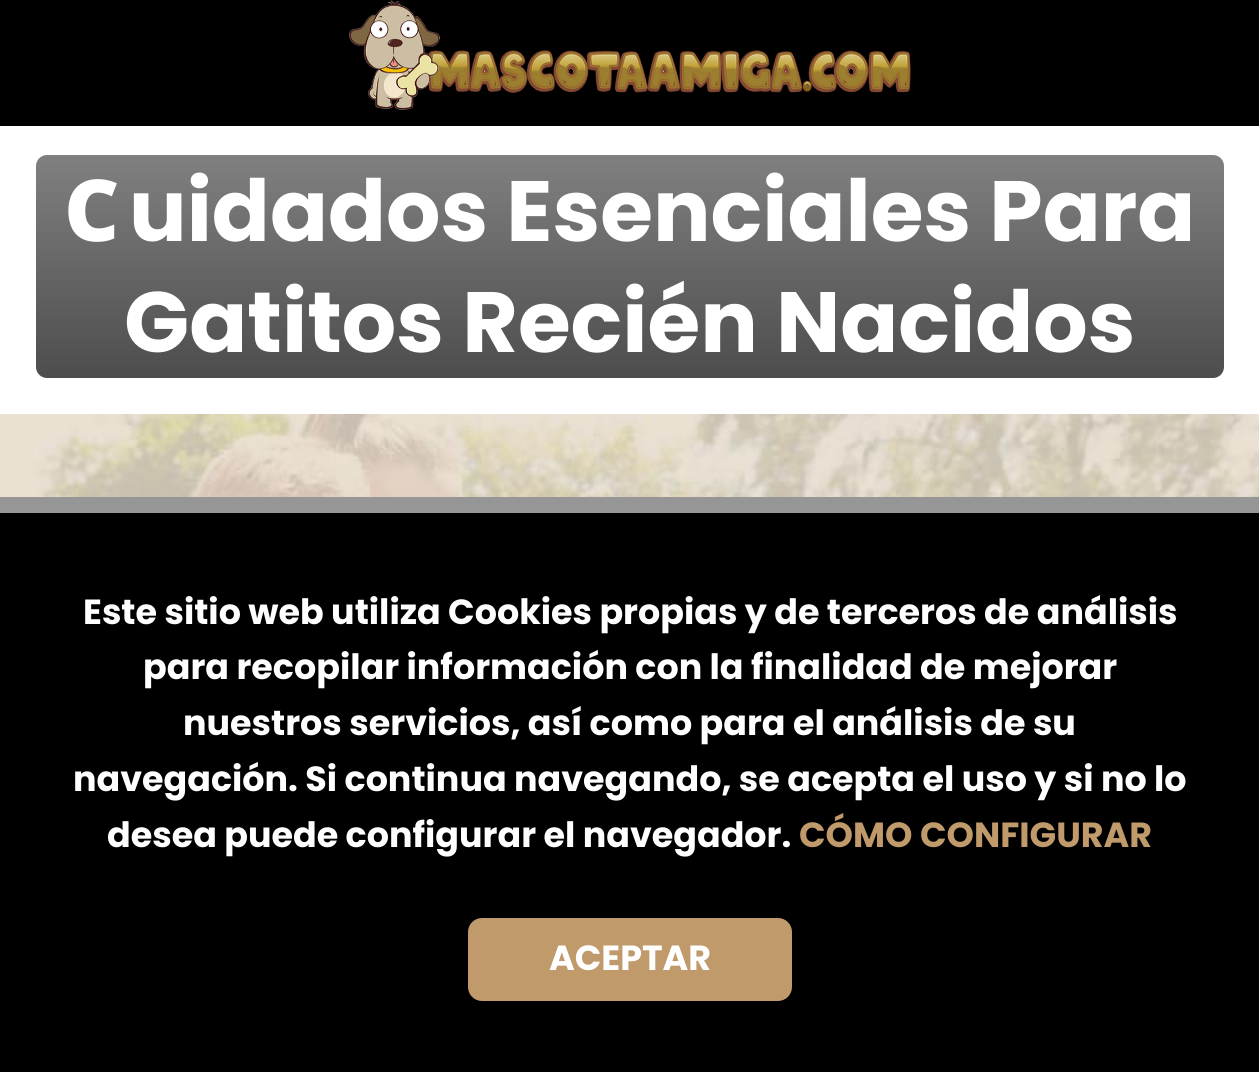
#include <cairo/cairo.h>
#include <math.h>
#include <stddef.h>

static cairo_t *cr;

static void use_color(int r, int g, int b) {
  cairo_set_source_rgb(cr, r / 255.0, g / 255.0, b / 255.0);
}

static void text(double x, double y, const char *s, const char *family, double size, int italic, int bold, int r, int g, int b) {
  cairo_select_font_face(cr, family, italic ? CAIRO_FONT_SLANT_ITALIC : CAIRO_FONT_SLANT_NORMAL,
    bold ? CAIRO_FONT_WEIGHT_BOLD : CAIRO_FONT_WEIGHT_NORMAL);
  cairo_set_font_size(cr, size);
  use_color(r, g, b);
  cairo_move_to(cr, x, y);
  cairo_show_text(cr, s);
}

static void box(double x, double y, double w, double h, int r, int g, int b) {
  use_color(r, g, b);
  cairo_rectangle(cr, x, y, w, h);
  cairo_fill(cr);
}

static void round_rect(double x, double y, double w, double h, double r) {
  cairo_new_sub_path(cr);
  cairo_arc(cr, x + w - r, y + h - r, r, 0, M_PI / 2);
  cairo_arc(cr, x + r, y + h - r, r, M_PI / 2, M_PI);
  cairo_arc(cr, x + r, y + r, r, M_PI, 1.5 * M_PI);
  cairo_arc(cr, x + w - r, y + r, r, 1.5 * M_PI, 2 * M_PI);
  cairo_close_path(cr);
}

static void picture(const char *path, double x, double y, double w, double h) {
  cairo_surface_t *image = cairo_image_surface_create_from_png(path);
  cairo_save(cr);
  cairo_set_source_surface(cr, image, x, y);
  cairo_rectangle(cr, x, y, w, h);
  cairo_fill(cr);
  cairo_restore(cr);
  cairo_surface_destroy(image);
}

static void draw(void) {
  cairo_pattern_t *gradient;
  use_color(255, 255, 255);
  cairo_paint(cr);
  box(0, 0, 1259, 126, 0, 0, 0);
  picture("img_01.png", 349, 0, 562, 110);
  gradient = cairo_pattern_create_linear(630, 378, 630, 155);
  cairo_pattern_add_color_stop_rgba(gradient, 0, 0.302, 0.302, 0.302, 1);
  cairo_pattern_add_color_stop_rgba(gradient, 1, 0.502, 0.502, 0.502, 1);
  cairo_set_source(cr, gradient);
  cairo_pattern_destroy(gradient);
  round_rect(36, 155, 1188, 223, 11);
  cairo_fill(cr);
  picture("img_02.png", 0, 414, 1259, 83);
  cairo_rectangle(cr, -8, 505, 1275, 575);
  use_color(150, 150, 150);
  cairo_set_line_width(cr, 16);
  cairo_stroke(cr);
  box(0, 513, 1259, 559, 0, 0, 0);
  use_color(193, 154, 107);
  round_rect(468, 918, 324, 83, 14);
  cairo_fill(cr);
  text(64, 241, "C", "Noto Sans Black", 85.5, 0, 0, 255, 255, 255);
  text(129, 241, "uidados Esenciales Para", "Poppins", 85.5, 0, 1, 255, 255, 255);
  text(124, 352, "Gatitos Recién Nacidos", "Poppins", 85.5, 0, 1, 255, 255, 255);
  text(83, 624, "Este sitio web utiliza Cookies propias y de terceros de análisis", "Poppins", 34.9, 0, 1, 255, 255, 255);
  text(143, 679, "para recopilar información con la finalidad de mejorar", "Poppins", 34.9, 0, 1, 255, 255, 255);
  text(183, 735, "nuestros servicios, así como para el análisis de su", "Poppins", 34.9, 0, 1, 255, 255, 255);
  text(73, 791, "navegación. Si continua navegando, se acepta el uso y si no lo", "Poppins", 34.9, 0, 1, 255, 255, 255);
  text(107, 847, "desea puede configurar el navegador.", "Poppins", 34.9, 0, 1, 255, 255, 255);
  text(799, 847, "CÓMO CONFIGURAR", "Poppins", 34.9, 0, 1, 193, 154, 107);
  text(549, 970, "ACEPTAR", "Poppins", 34.9, 0, 1, 255, 255, 255);
}

int main(void) {
  cairo_surface_t *surface = cairo_image_surface_create(CAIRO_FORMAT_RGB24, 1259, 1072);
  cr = cairo_create(surface);
  cairo_font_options_t *options = cairo_font_options_create();
  cairo_font_options_set_hint_metrics(options, CAIRO_HINT_METRICS_OFF);
  cairo_font_options_set_hint_style(options, CAIRO_HINT_STYLE_NONE);
  cairo_set_font_options(cr, options);
  cairo_set_miter_limit(cr, 4);
  draw();
  cairo_surface_write_to_png(surface, "out.png");
  cairo_font_options_destroy(options);
  cairo_destroy(cr);
  cairo_surface_destroy(surface);
  return 0;
}
